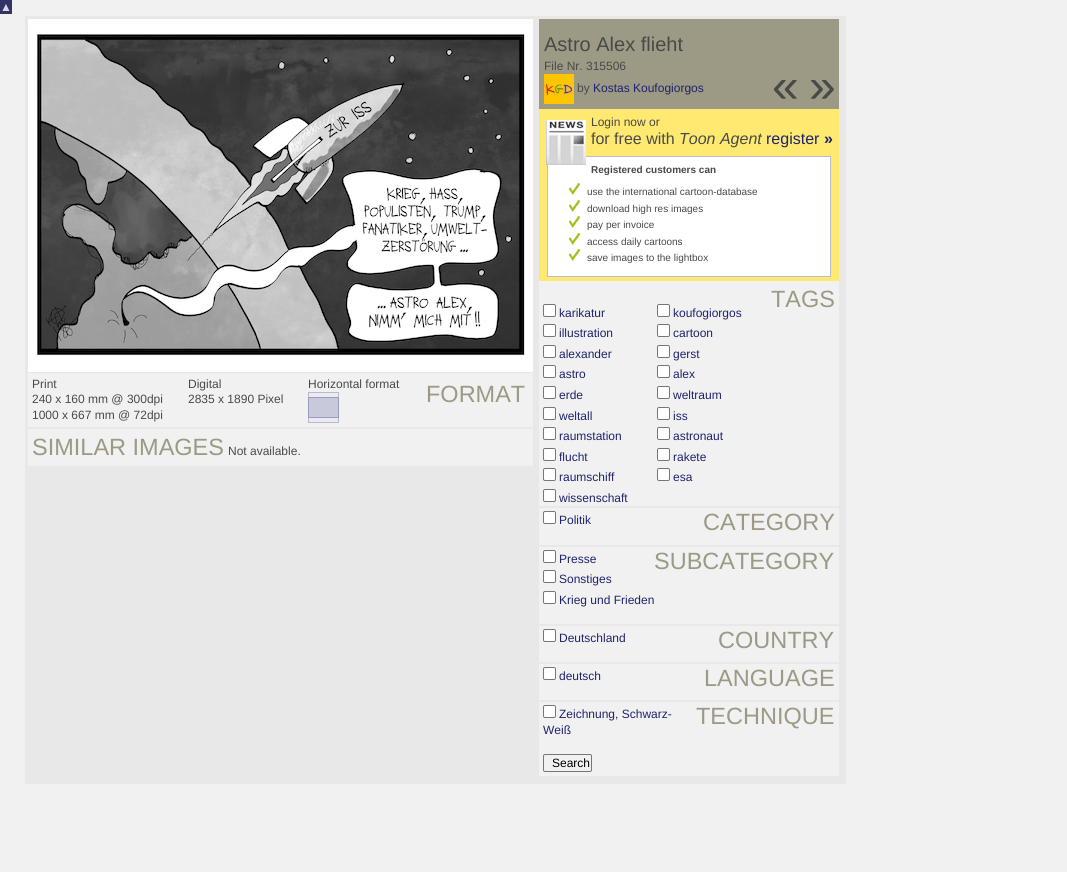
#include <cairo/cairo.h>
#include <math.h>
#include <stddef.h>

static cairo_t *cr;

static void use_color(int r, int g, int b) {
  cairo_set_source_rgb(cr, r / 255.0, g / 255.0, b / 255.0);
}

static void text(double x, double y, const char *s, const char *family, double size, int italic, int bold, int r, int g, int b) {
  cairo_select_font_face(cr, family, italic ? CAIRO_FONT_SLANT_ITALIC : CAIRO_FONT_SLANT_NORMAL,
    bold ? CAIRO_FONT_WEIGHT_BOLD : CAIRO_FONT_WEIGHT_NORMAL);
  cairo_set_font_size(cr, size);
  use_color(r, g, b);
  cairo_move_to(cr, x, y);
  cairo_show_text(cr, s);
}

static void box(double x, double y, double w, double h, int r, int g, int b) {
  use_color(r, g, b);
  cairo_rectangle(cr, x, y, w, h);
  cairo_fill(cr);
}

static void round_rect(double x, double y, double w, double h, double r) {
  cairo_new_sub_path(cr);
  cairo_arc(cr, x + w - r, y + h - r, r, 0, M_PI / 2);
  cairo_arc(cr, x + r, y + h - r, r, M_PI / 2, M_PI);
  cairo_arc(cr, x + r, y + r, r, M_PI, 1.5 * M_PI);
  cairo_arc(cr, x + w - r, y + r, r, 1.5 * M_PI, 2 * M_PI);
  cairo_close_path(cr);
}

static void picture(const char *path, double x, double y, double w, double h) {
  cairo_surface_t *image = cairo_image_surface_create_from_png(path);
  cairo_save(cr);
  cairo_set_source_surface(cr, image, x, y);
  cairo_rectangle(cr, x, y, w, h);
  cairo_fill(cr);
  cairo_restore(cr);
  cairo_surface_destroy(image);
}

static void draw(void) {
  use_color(241, 241, 241);
  cairo_paint(cr);
  box(0, 0, 12, 14, 51, 51, 102);
  box(25, 16, 821, 768, 232, 232, 232);
  box(28, 19, 505, 353, 255, 255, 255);
  picture("img_01.png", 36, 34, 489, 322);
  box(28, 373, 505, 54, 241, 241, 241);
  picture("img_02.png", 308, 392, 31, 31);
  box(28, 429, 505, 37, 241, 241, 241);
  box(539, 19, 300, 90, 156, 153, 132);
  picture("img_03.png", 544, 74, 30, 30);
  box(539, 109, 300, 172, 255, 233, 112);
  use_color(255, 255, 255);
  cairo_rectangle(cr, 547.5, 156.5, 283, 120);
  cairo_fill_preserve(cr);
  use_color(185, 187, 208);
  cairo_set_line_width(cr, 1);
  cairo_stroke(cr);
  picture("img_04.png", 546, 120, 40, 45);
  picture("img_05.png", 569, 183, 11, 12);
  picture("img_05.png", 569, 200, 11, 12);
  picture("img_05.png", 569, 216, 11, 12);
  picture("img_05.png", 569, 233, 11, 12);
  picture("img_05.png", 569, 249, 11, 12);
  box(539, 281, 300, 495, 241, 241, 241);
  use_color(255, 255, 255);
  round_rect(543.5, 304.5, 12, 12, 1.5);
  cairo_fill_preserve(cr);
  use_color(118, 118, 118);
  cairo_stroke(cr);
  use_color(255, 255, 255);
  round_rect(657.5, 304.5, 12, 12, 1.5);
  cairo_fill_preserve(cr);
  use_color(118, 118, 118);
  cairo_stroke(cr);
  use_color(255, 255, 255);
  round_rect(543.5, 324.5, 12, 12, 1.5);
  cairo_fill_preserve(cr);
  use_color(118, 118, 118);
  cairo_stroke(cr);
  use_color(255, 255, 255);
  round_rect(657.5, 324.5, 12, 12, 1.5);
  cairo_fill_preserve(cr);
  use_color(118, 118, 118);
  cairo_stroke(cr);
  use_color(255, 255, 255);
  round_rect(543.5, 345.5, 12, 12, 1.5);
  cairo_fill_preserve(cr);
  use_color(118, 118, 118);
  cairo_stroke(cr);
  use_color(255, 255, 255);
  round_rect(657.5, 345.5, 12, 12, 1.5);
  cairo_fill_preserve(cr);
  use_color(118, 118, 118);
  cairo_stroke(cr);
  use_color(255, 255, 255);
  round_rect(543.5, 365.5, 12, 12, 1.5);
  cairo_fill_preserve(cr);
  use_color(118, 118, 118);
  cairo_stroke(cr);
  use_color(255, 255, 255);
  round_rect(657.5, 365.5, 12, 12, 1.5);
  cairo_fill_preserve(cr);
  use_color(118, 118, 118);
  cairo_stroke(cr);
  use_color(255, 255, 255);
  round_rect(543.5, 386.5, 12, 12, 1.5);
  cairo_fill_preserve(cr);
  use_color(118, 118, 118);
  cairo_stroke(cr);
  use_color(255, 255, 255);
  round_rect(657.5, 386.5, 12, 12, 1.5);
  cairo_fill_preserve(cr);
  use_color(118, 118, 118);
  cairo_stroke(cr);
  use_color(255, 255, 255);
  round_rect(543.5, 407.5, 12, 12, 1.5);
  cairo_fill_preserve(cr);
  use_color(118, 118, 118);
  cairo_stroke(cr);
  use_color(255, 255, 255);
  round_rect(657.5, 407.5, 12, 12, 1.5);
  cairo_fill_preserve(cr);
  use_color(118, 118, 118);
  cairo_stroke(cr);
  use_color(255, 255, 255);
  round_rect(543.5, 427.5, 12, 12, 1.5);
  cairo_fill_preserve(cr);
  use_color(118, 118, 118);
  cairo_stroke(cr);
  use_color(255, 255, 255);
  round_rect(657.5, 427.5, 12, 12, 1.5);
  cairo_fill_preserve(cr);
  use_color(118, 118, 118);
  cairo_stroke(cr);
  use_color(255, 255, 255);
  round_rect(543.5, 448.5, 12, 12, 1.5);
  cairo_fill_preserve(cr);
  use_color(118, 118, 118);
  cairo_stroke(cr);
  use_color(255, 255, 255);
  round_rect(657.5, 448.5, 12, 12, 1.5);
  cairo_fill_preserve(cr);
  use_color(118, 118, 118);
  cairo_stroke(cr);
  use_color(255, 255, 255);
  round_rect(543.5, 468.5, 12, 12, 1.5);
  cairo_fill_preserve(cr);
  use_color(118, 118, 118);
  cairo_stroke(cr);
  use_color(255, 255, 255);
  round_rect(657.5, 468.5, 12, 12, 1.5);
  cairo_fill_preserve(cr);
  use_color(118, 118, 118);
  cairo_stroke(cr);
  use_color(255, 255, 255);
  round_rect(543.5, 489.5, 12, 12, 1.5);
  cairo_fill_preserve(cr);
  use_color(118, 118, 118);
  cairo_stroke(cr);
  box(539, 506, 300, 2, 232, 232, 232);
  use_color(255, 255, 255);
  round_rect(543.5, 511.5, 12, 12, 1.5);
  cairo_fill_preserve(cr);
  use_color(118, 118, 118);
  cairo_stroke(cr);
  box(539, 545, 300, 2, 232, 232, 232);
  use_color(255, 255, 255);
  round_rect(543.5, 550.5, 12, 12, 1.5);
  cairo_fill_preserve(cr);
  use_color(118, 118, 118);
  cairo_stroke(cr);
  use_color(255, 255, 255);
  round_rect(543.5, 570.5, 12, 12, 1.5);
  cairo_fill_preserve(cr);
  use_color(118, 118, 118);
  cairo_stroke(cr);
  use_color(255, 255, 255);
  round_rect(543.5, 591.5, 12, 12, 1.5);
  cairo_fill_preserve(cr);
  use_color(118, 118, 118);
  cairo_stroke(cr);
  box(539, 624, 300, 2, 232, 232, 232);
  use_color(255, 255, 255);
  round_rect(543.5, 629.5, 12, 12, 1.5);
  cairo_fill_preserve(cr);
  use_color(118, 118, 118);
  cairo_stroke(cr);
  box(539, 662, 300, 2, 232, 232, 232);
  use_color(255, 255, 255);
  round_rect(543.5, 667.5, 12, 12, 1.5);
  cairo_fill_preserve(cr);
  use_color(118, 118, 118);
  cairo_stroke(cr);
  box(539, 700, 300, 2, 232, 232, 232);
  use_color(255, 255, 255);
  round_rect(543.5, 705.5, 12, 12, 1.5);
  cairo_fill_preserve(cr);
  use_color(118, 118, 118);
  cairo_stroke(cr);
  round_rect(543.5, 754.5, 48, 17, 1.5);
  cairo_stroke(cr);
  text(0, 11, "▲", "Liberation Sans", 12, 0, 0, 216, 217, 229);
  text(32, 388, "Print", "Liberation Sans", 12, 0, 0, 73, 73, 73);
  text(32, 403, "240 x 160 mm @ 300dpi", "Liberation Sans", 12, 0, 0, 73, 73, 73);
  text(32, 419, "1000 x 667 mm @ 72dpi", "Liberation Sans", 12, 0, 0, 73, 73, 73);
  text(188, 388, "Digital", "Liberation Sans", 12, 0, 0, 73, 73, 73);
  text(188, 403, "2835 x 1890 Pixel", "Liberation Sans", 12, 0, 0, 73, 73, 73);
  text(308, 388, "Horizontal format", "Liberation Sans", 12, 0, 0, 73, 73, 73);
  text(426, 402, "FORMAT", "Liberation Sans", 23.5, 0, 0, 156, 153, 132);
  text(32, 455, "SIMILAR IMAGES", "Liberation Sans", 23.5, 0, 0, 156, 153, 132);
  text(228, 455, "Not available.", "Liberation Sans", 12, 0, 0, 73, 73, 73);
  text(544, 51, "Astro Alex flieht", "Liberation Sans", 20, 0, 0, 73, 73, 73);
  text(544, 70, "File Nr. 315506", "Liberation Sans", 12, 0, 0, 73, 73, 73);
  text(577, 92, "by", "Liberation Sans", 12, 0, 0, 73, 73, 73);
  text(593, 92, "Kostas Koufogiorgos", "Liberation Sans", 12, 0, 0, 29, 36, 108);
  text(772, 102, "«", "Liberation Sans", 48, 0, 0, 73, 73, 73);
  text(809, 102, "»", "Liberation Sans", 48, 0, 0, 73, 73, 73);
  text(591, 126, "Login now or", "Liberation Sans", 12, 0, 0, 73, 73, 73);
  text(591, 144, "for free with", "Liberation Sans", 16, 0, 0, 73, 73, 73);
  text(679, 144, "Toon Agent", "Liberation Sans", 16, 1, 0, 73, 73, 73);
  text(766, 144, "register", "Liberation Sans", 16, 0, 0, 29, 36, 108);
  text(824, 144, "»", "Liberation Sans", 16, 0, 1, 29, 36, 108);
  text(591, 173, "Registered customers can", "Liberation Sans", 10, 0, 1, 73, 73, 73);
  text(587, 195, "use the international cartoon-database", "Liberation Sans", 10, 0, 0, 73, 73, 73);
  text(587, 212, "download high res images", "Liberation Sans", 10, 0, 0, 73, 73, 73);
  text(587, 228, "pay per invoice", "Liberation Sans", 10, 0, 0, 73, 73, 73);
  text(587, 245, "access daily cartoons", "Liberation Sans", 10, 0, 0, 73, 73, 73);
  text(587, 261, "save images to the lightbox", "Liberation Sans", 10, 0, 0, 73, 73, 73);
  text(771, 307, "TAGS", "Liberation Sans", 23.5, 0, 0, 156, 153, 132);
  text(559, 317, "karikatur", "Liberation Sans", 12, 0, 0, 29, 36, 108);
  text(673, 317, "koufogiorgos", "Liberation Sans", 12, 0, 0, 29, 36, 108);
  text(559, 337, "illustration", "Liberation Sans", 12, 0, 0, 29, 36, 108);
  text(673, 337, "cartoon", "Liberation Sans", 12, 0, 0, 29, 36, 108);
  text(559, 358, "alexander", "Liberation Sans", 12, 0, 0, 29, 36, 108);
  text(673, 358, "gerst", "Liberation Sans", 12, 0, 0, 29, 36, 108);
  text(559, 378, "astro", "Liberation Sans", 12, 0, 0, 29, 36, 108);
  text(673, 378, "alex", "Liberation Sans", 12, 0, 0, 29, 36, 108);
  text(559, 399, "erde", "Liberation Sans", 12, 0, 0, 29, 36, 108);
  text(673, 399, "weltraum", "Liberation Sans", 12, 0, 0, 29, 36, 108);
  text(559, 420, "weltall", "Liberation Sans", 12, 0, 0, 29, 36, 108);
  text(673, 420, "iss", "Liberation Sans", 12, 0, 0, 29, 36, 108);
  text(559, 440, "raumstation", "Liberation Sans", 12, 0, 0, 29, 36, 108);
  text(673, 440, "astronaut", "Liberation Sans", 12, 0, 0, 29, 36, 108);
  text(559, 461, "flucht", "Liberation Sans", 12, 0, 0, 29, 36, 108);
  text(673, 461, "rakete", "Liberation Sans", 12, 0, 0, 29, 36, 108);
  text(559, 481, "raumschiff", "Liberation Sans", 12, 0, 0, 29, 36, 108);
  text(673, 481, "esa", "Liberation Sans", 12, 0, 0, 29, 36, 108);
  text(559, 502, "wissenschaft", "Liberation Sans", 12, 0, 0, 29, 36, 108);
  text(559, 524, "Politik", "Liberation Sans", 12, 0, 0, 29, 36, 108);
  text(703, 530, "CATEGORY", "Liberation Sans", 23.5, 0, 0, 156, 153, 132);
  text(559, 563, "Presse", "Liberation Sans", 12, 0, 0, 29, 36, 108);
  text(654, 569, "SUBCATEGORY", "Liberation Sans", 23.5, 0, 0, 156, 153, 132);
  text(559, 583, "Sonstiges", "Liberation Sans", 12, 0, 0, 29, 36, 108);
  text(559, 604, "Krieg und Frieden", "Liberation Sans", 12, 0, 0, 29, 36, 108);
  text(559, 642, "Deutschland", "Liberation Sans", 12, 0, 0, 29, 36, 108);
  text(718, 648, "COUNTRY", "Liberation Sans", 23.5, 0, 0, 156, 153, 132);
  text(559, 680, "deutsch", "Liberation Sans", 12, 0, 0, 29, 36, 108);
  text(704, 686, "LANGUAGE", "Liberation Sans", 23.5, 0, 0, 156, 153, 132);
  text(559, 718, "Zeichnung, Schwarz-", "Liberation Sans", 12, 0, 0, 29, 36, 108);
  text(696, 724, "TECHNIQUE", "Liberation Sans", 23.5, 0, 0, 156, 153, 132);
  text(543, 734, "Weiß", "Liberation Sans", 12, 0, 0, 29, 36, 108);
  text(552, 767, "Search", "Liberation Sans", 12, 0, 0, 0, 0, 0);
}

int main(void) {
  cairo_surface_t *surface = cairo_image_surface_create(CAIRO_FORMAT_RGB24, 1067, 872);
  cr = cairo_create(surface);
  cairo_font_options_t *options = cairo_font_options_create();
  cairo_font_options_set_hint_metrics(options, CAIRO_HINT_METRICS_OFF);
  cairo_font_options_set_hint_style(options, CAIRO_HINT_STYLE_NONE);
  cairo_set_font_options(cr, options);
  cairo_set_miter_limit(cr, 4);
  draw();
  cairo_surface_write_to_png(surface, "out.png");
  cairo_font_options_destroy(options);
  cairo_destroy(cr);
  cairo_surface_destroy(surface);
  return 0;
}
